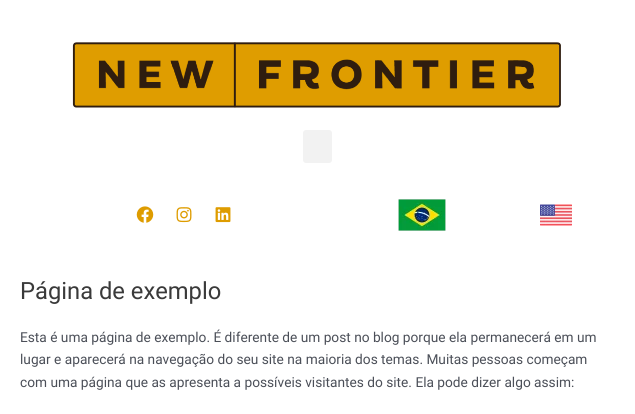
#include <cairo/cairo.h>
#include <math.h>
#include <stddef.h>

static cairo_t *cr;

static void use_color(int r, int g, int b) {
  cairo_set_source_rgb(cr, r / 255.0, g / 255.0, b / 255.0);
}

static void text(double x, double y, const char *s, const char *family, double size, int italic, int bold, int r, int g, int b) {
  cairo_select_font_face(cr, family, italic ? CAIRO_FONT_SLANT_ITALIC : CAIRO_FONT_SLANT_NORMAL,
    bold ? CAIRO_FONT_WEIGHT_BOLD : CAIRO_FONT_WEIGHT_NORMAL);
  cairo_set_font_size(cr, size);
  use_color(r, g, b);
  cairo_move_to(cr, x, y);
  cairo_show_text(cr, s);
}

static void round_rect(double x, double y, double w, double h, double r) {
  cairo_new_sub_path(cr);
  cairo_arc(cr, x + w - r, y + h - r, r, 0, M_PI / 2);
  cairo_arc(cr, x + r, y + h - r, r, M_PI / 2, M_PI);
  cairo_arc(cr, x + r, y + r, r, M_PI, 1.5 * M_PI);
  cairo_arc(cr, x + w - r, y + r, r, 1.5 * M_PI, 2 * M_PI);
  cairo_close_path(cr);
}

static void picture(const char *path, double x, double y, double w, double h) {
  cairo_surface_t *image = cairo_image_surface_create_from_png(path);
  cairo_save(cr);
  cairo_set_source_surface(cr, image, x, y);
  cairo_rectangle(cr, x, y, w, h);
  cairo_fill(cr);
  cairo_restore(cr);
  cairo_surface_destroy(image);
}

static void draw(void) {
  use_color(255, 255, 255);
  cairo_paint(cr);
  picture("img_01.png", 72, 42, 489, 66);
  use_color(242, 242, 242);
  round_rect(303, 130, 29, 33, 3);
  cairo_fill(cr);
  picture("img_02.png", 136, 206, 18, 17);
  picture("img_03.png", 176, 207, 16, 16);
  picture("img_04.png", 215, 207, 16, 16);
  picture("img_05.png", 398, 199, 48, 32);
  picture("img_06.png", 540, 204, 32, 22);
  text(20, 299, "Página de exemplo", "Roboto", 23.75, 0, 0, 58, 58, 58);
  text(20, 342, "Esta é uma página de exemplo. É diferente de um post no blog porque ela permanecerá em um", "Roboto", 13.7, 0, 0, 75, 79, 88);
  text(20, 364, "lugar e aparecerá na navegação do seu site na maioria dos temas. Muitas pessoas começam", "Roboto", 13.7, 0, 0, 75, 79, 88);
  text(20, 387, "com uma página que as apresenta a possíveis visitantes do site. Ela pode dizer algo assim:", "Roboto", 13.7, 0, 0, 75, 79, 88);
}

int main(void) {
  cairo_surface_t *surface = cairo_image_surface_create(CAIRO_FORMAT_RGB24, 635, 414);
  cr = cairo_create(surface);
  cairo_font_options_t *options = cairo_font_options_create();
  cairo_font_options_set_hint_metrics(options, CAIRO_HINT_METRICS_OFF);
  cairo_font_options_set_hint_style(options, CAIRO_HINT_STYLE_NONE);
  cairo_set_font_options(cr, options);
  cairo_set_miter_limit(cr, 4);
  draw();
  cairo_surface_write_to_png(surface, "out.png");
  cairo_font_options_destroy(options);
  cairo_destroy(cr);
  cairo_surface_destroy(surface);
  return 0;
}
